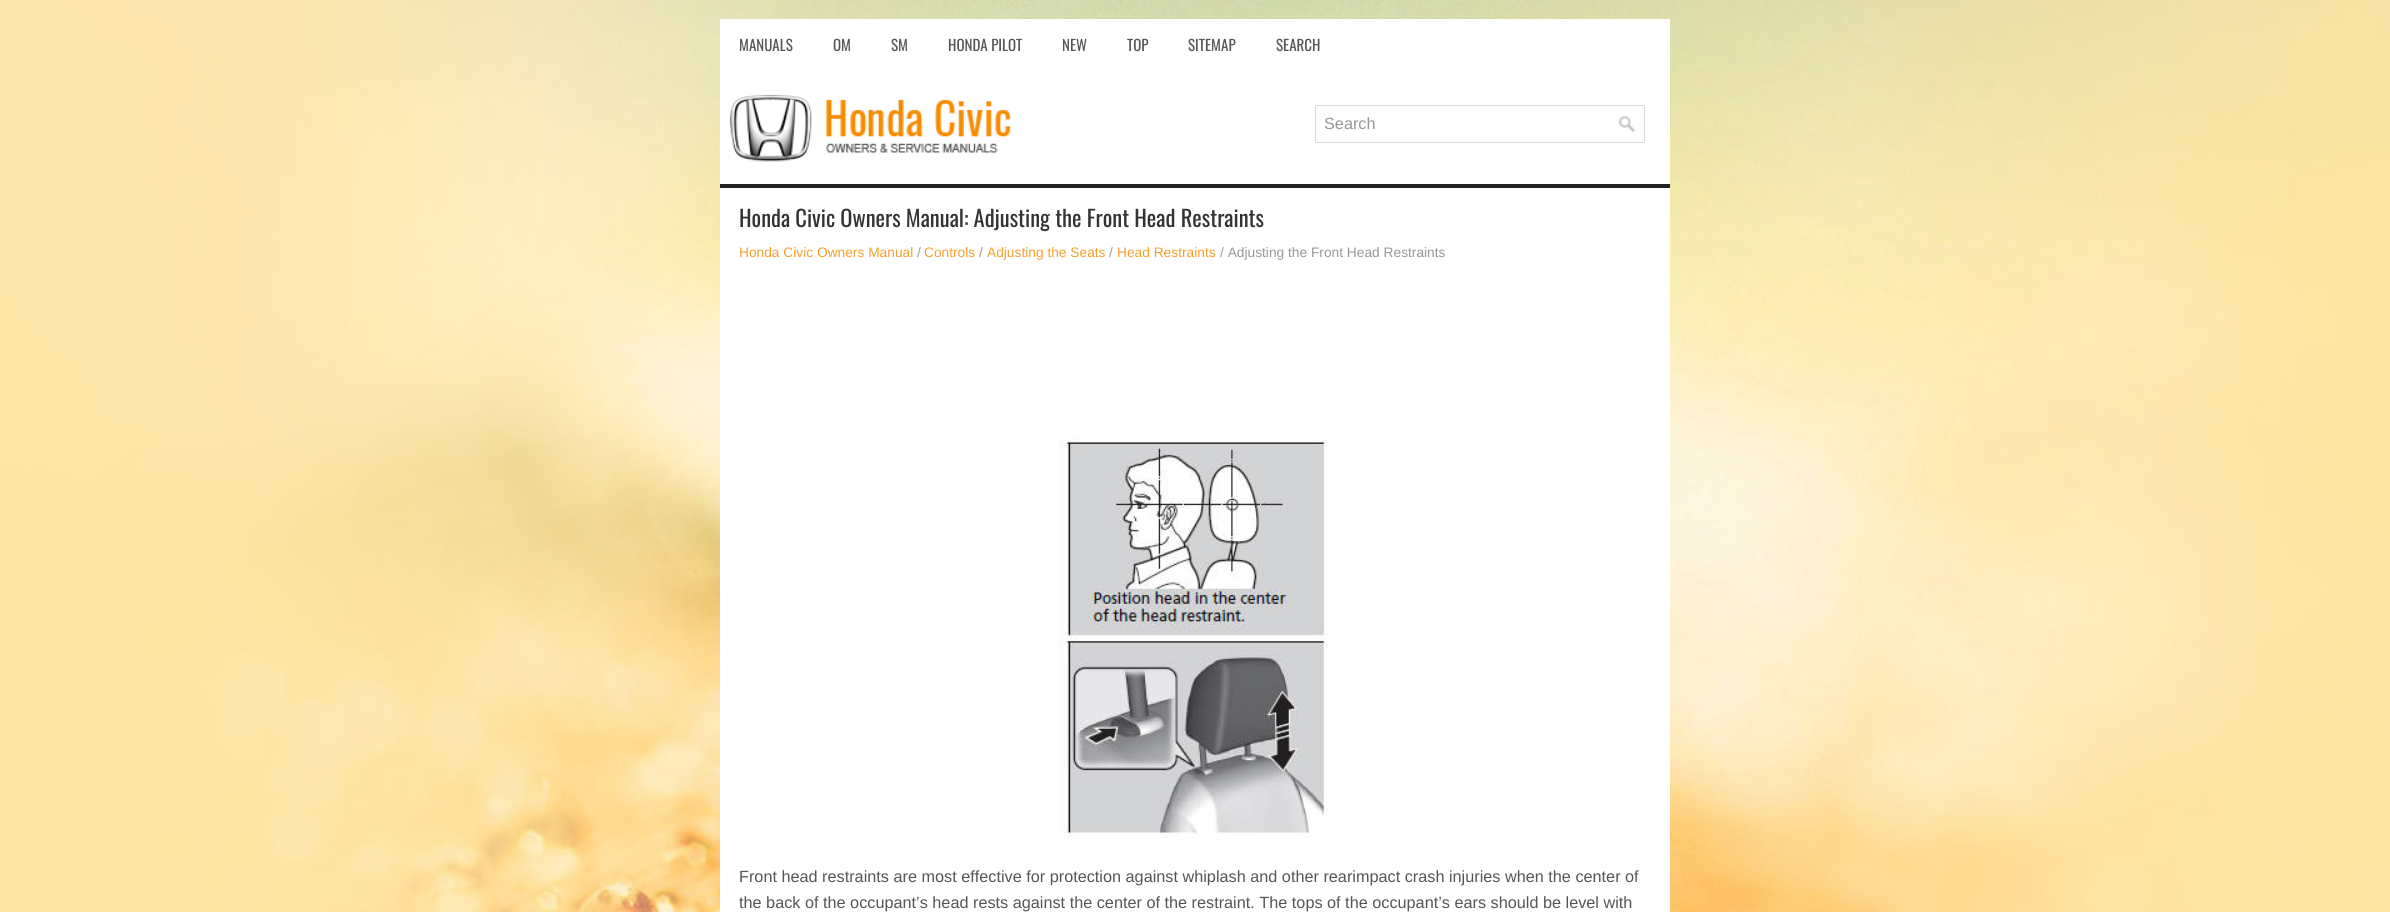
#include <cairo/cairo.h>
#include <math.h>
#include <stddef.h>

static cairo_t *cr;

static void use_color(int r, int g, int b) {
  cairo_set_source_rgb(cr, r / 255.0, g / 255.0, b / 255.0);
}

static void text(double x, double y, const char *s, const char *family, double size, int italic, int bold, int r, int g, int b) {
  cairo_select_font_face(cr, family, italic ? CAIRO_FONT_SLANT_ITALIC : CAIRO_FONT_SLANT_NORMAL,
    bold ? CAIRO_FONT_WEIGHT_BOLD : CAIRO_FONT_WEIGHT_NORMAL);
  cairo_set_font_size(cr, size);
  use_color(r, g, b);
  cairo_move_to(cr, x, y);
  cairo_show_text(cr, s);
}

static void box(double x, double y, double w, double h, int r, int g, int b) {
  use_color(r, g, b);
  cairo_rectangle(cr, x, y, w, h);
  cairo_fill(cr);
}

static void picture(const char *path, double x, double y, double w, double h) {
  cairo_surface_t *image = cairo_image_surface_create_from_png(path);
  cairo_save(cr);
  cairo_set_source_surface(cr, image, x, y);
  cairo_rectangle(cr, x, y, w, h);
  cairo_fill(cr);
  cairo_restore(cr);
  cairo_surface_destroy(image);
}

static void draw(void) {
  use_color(255, 255, 255);
  cairo_paint(cr);
  picture("img_01.png", 0, 0, 2390, 912);
  box(720, 19, 950, 165, 255, 255, 255);
  box(720, 184, 950, 4, 34, 34, 34);
  picture("img_02.png", 729, 94, 282, 68);
  cairo_rectangle(cr, 1315.5, 105.5, 329, 37);
  use_color(216, 216, 216);
  cairo_set_line_width(cr, 1);
  cairo_stroke(cr);
  picture("img_03.png", 1618, 116, 18, 17);
  box(720, 188, 950, 724, 255, 255, 255);
  picture("img_04.png", 1059, 439, 270, 400);
  text(739, 51, "MANUALS", "Oswald", 15, 0, 0, 85, 85, 85);
  text(833, 51, "OM", "Oswald", 15, 0, 0, 85, 85, 85);
  text(891, 51, "SM", "Oswald", 15, 0, 0, 85, 85, 85);
  text(948, 51, "HONDA PILOT", "Oswald", 15, 0, 0, 85, 85, 85);
  text(1062, 51, "NEW", "Oswald", 15, 0, 0, 85, 85, 85);
  text(1127, 51, "TOP", "Oswald", 15, 0, 0, 85, 85, 85);
  text(1188, 51, "SITEMAP", "Oswald", 15, 0, 0, 85, 85, 85);
  text(1276, 51, "SEARCH", "Oswald", 15, 0, 0, 85, 85, 85);
  text(1324, 129, "Search", "Liberation Sans", 16.25, 0, 0, 151, 151, 151);
  text(739, 227, "Honda Civic Owners Manual: Adjusting the Front Head Restraints", "Oswald", 22.5, 0, 0, 51, 51, 51);
  text(739, 257, "Honda Civic Owners Manual", "Liberation Sans", 13.75, 0, 0, 247, 159, 45);
  text(917, 257, "/", "Liberation Sans", 13.75, 0, 0, 151, 151, 151);
  text(924, 257, "Controls", "Liberation Sans", 13.75, 0, 0, 247, 159, 45);
  text(979, 257, "/", "Liberation Sans", 13.75, 0, 0, 151, 151, 151);
  text(987, 257, "Adjusting the Seats", "Liberation Sans", 13.75, 0, 0, 247, 159, 45);
  text(1109, 257, "/", "Liberation Sans", 13.75, 0, 0, 151, 151, 151);
  text(1117, 257, "Head Restraints", "Liberation Sans", 13.75, 0, 0, 247, 159, 45);
  text(1220, 257, "/ Adjusting the Front Head Restraints", "Liberation Sans", 13.75, 0, 0, 151, 151, 151);
  text(739, 882, "Front head restraints are most effective for protection against whiplash and other rearimpact crash injuries when the center of", "Liberation Sans", 16.25, 0, 0, 85, 85, 85);
  text(739, 908, "the back of the occupant’s head rests against the center of the restraint. The tops of the occupant’s ears should be level with", "Liberation Sans", 16.25, 0, 0, 85, 85, 85);
}

int main(void) {
  cairo_surface_t *surface = cairo_image_surface_create(CAIRO_FORMAT_RGB24, 2390, 912);
  cr = cairo_create(surface);
  cairo_font_options_t *options = cairo_font_options_create();
  cairo_font_options_set_hint_metrics(options, CAIRO_HINT_METRICS_OFF);
  cairo_font_options_set_hint_style(options, CAIRO_HINT_STYLE_NONE);
  cairo_set_font_options(cr, options);
  cairo_set_miter_limit(cr, 4);
  draw();
  cairo_surface_write_to_png(surface, "out.png");
  cairo_font_options_destroy(options);
  cairo_destroy(cr);
  cairo_surface_destroy(surface);
  return 0;
}
